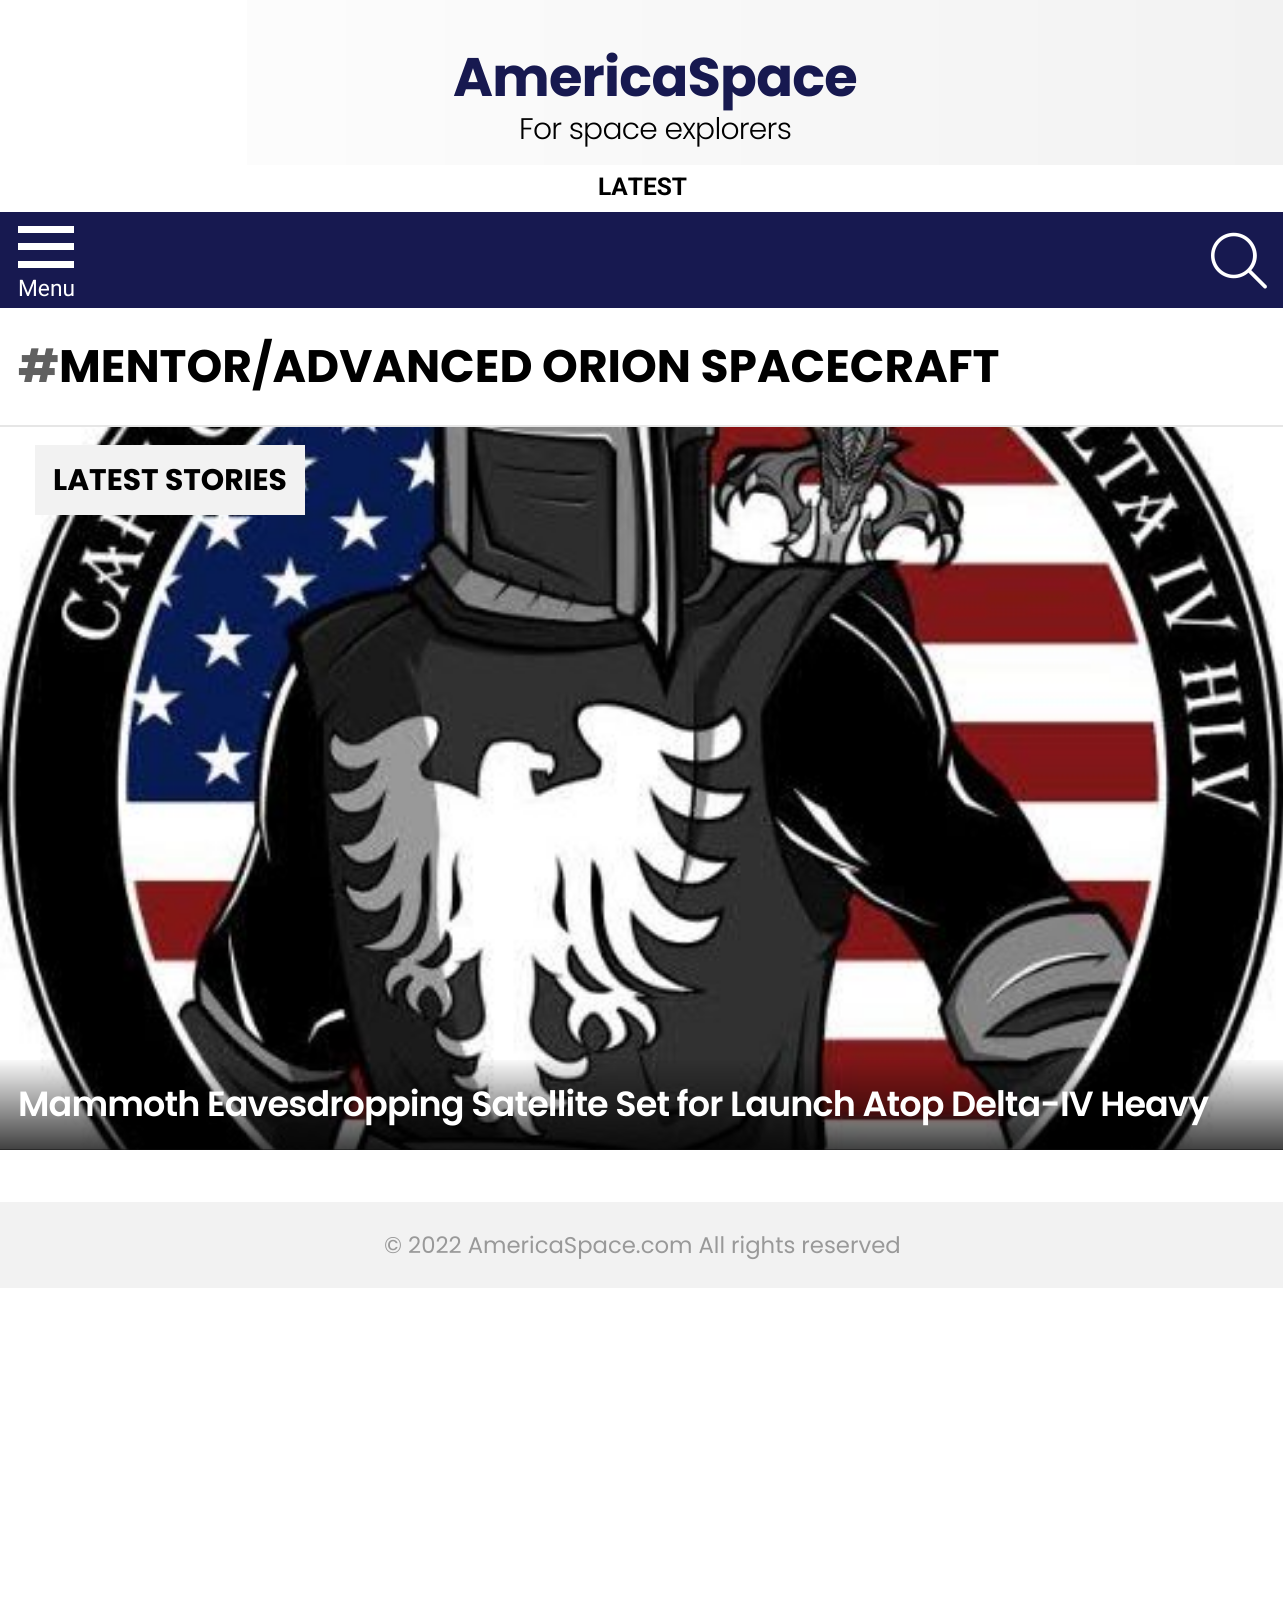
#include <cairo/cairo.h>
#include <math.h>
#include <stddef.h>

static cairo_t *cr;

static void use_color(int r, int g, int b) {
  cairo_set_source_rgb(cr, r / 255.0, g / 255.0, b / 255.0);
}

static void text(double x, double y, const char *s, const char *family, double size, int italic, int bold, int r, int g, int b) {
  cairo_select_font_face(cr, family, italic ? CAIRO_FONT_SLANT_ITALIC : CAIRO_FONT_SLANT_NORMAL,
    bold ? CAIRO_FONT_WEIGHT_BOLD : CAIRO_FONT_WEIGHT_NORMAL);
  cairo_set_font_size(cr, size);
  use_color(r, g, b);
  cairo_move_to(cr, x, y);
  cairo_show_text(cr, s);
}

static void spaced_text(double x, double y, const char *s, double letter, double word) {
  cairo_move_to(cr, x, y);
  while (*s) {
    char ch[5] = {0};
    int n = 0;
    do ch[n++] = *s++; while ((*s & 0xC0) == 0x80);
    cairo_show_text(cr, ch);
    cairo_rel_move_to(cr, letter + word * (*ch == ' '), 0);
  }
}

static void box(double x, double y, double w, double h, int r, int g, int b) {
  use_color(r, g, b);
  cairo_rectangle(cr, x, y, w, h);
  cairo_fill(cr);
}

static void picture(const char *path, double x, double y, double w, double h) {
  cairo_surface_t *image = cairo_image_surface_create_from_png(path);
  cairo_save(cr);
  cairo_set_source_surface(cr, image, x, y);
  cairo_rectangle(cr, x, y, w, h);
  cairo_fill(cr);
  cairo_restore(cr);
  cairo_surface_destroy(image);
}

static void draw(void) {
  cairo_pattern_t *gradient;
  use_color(255, 255, 255);
  cairo_paint(cr);
  gradient = cairo_pattern_create_linear(0, 82, 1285, 82);
  cairo_pattern_add_color_stop_rgba(gradient, 0, 1, 1, 1, 1);
  cairo_pattern_add_color_stop_rgba(gradient, 1, 0.949, 0.949, 0.949, 1);
  cairo_set_source(cr, gradient);
  cairo_pattern_destroy(gradient);
  cairo_rectangle(cr, 247, 0, 1036, 165);
  cairo_fill(cr);
  box(0, 212, 1283, 96, 23, 25, 80);
  use_color(255, 255, 255);
  cairo_new_path(cr);
  cairo_move_to(cr, 18, 226);
  cairo_line_to(cr, 74, 226);
  cairo_line_to(cr, 74, 233);
  cairo_line_to(cr, 18, 233);
  cairo_close_path(cr);
  cairo_move_to(cr, 18, 243);
  cairo_line_to(cr, 74, 243);
  cairo_line_to(cr, 74, 250);
  cairo_line_to(cr, 18, 250);
  cairo_close_path(cr);
  cairo_move_to(cr, 18, 261);
  cairo_line_to(cr, 74, 261);
  cairo_line_to(cr, 74, 268);
  cairo_line_to(cr, 18, 268);
  cairo_close_path(cr);
  cairo_fill(cr);
  picture("img_01.png", 1211, 232, 56, 57);
  box(0, 425, 1283, 2, 230, 230, 230);
  box(0, 1149, 1283, 1, 51, 51, 51);
  picture("img_02.png", 0, 427, 1283, 723);
  box(35, 445, 270, 70, 242, 242, 242);
  gradient = cairo_pattern_create_linear(642, 1057, 642, 1150);
  cairo_pattern_add_color_stop_rgba(gradient, 0, 0, 0, 0, 0);
  cairo_pattern_add_color_stop_rgba(gradient, 1, 0, 0, 0, 0.75);
  cairo_set_source(cr, gradient);
  cairo_pattern_destroy(gradient);
  cairo_rectangle(cr, 0, 1060, 1283, 90);
  cairo_fill(cr);
  box(0, 1202, 1283, 86, 242, 242, 242);
  cairo_select_font_face(cr, "Poppins", CAIRO_FONT_SLANT_NORMAL, CAIRO_FONT_WEIGHT_BOLD);
  cairo_set_font_size(cr, 54.25);
  use_color(23, 25, 80);
  spaced_text(453, 96, "AmericaSpace", -0.75, 0);
  cairo_select_font_face(cr, "Poppins Light", CAIRO_FONT_SLANT_NORMAL, CAIRO_FONT_WEIGHT_NORMAL);
  cairo_set_font_size(cr, 29.75);
  use_color(0, 0, 0);
  spaced_text(519, 139, "For space explorers", -0.75, 0);
  text(598, 195, "LATEST", "Roboto", 24.5, 0, 1, 0, 0, 0);
  text(18, 296, "Menu", "Roboto", 22.75, 0, 0, 255, 255, 255);
  text(18, 382, "#", "Poppins", 45.5, 0, 1, 96, 96, 96);
  text(59, 382, "MENTOR/ADVANCED ORION SPACECRAFT", "Poppins", 45.5, 0, 1, 0, 0, 0);
  text(53, 490, "LATEST STORIES", "Poppins", 29.75, 0, 1, 0, 0, 0);
  cairo_select_font_face(cr, "Poppins SemiBold", CAIRO_FONT_SLANT_NORMAL, CAIRO_FONT_WEIGHT_NORMAL);
  cairo_set_font_size(cr, 35);
  use_color(255, 255, 255);
  spaced_text(18, 1116, "Mammoth Eavesdropping Satellite Set for Launch Atop Delta-IV Heavy", -0.88, 0);
  text(384, 1253, "© 2022 AmericaSpace.com All rights reserved", "Poppins", 22.75, 0, 0, 153, 153, 153);
}

int main(void) {
  cairo_surface_t *surface = cairo_image_surface_create(CAIRO_FORMAT_RGB24, 1283, 1613);
  cr = cairo_create(surface);
  cairo_font_options_t *options = cairo_font_options_create();
  cairo_font_options_set_hint_metrics(options, CAIRO_HINT_METRICS_OFF);
  cairo_font_options_set_hint_style(options, CAIRO_HINT_STYLE_NONE);
  cairo_set_font_options(cr, options);
  cairo_set_miter_limit(cr, 4);
  draw();
  cairo_surface_write_to_png(surface, "out.png");
  cairo_font_options_destroy(options);
  cairo_destroy(cr);
  cairo_surface_destroy(surface);
  return 0;
}
